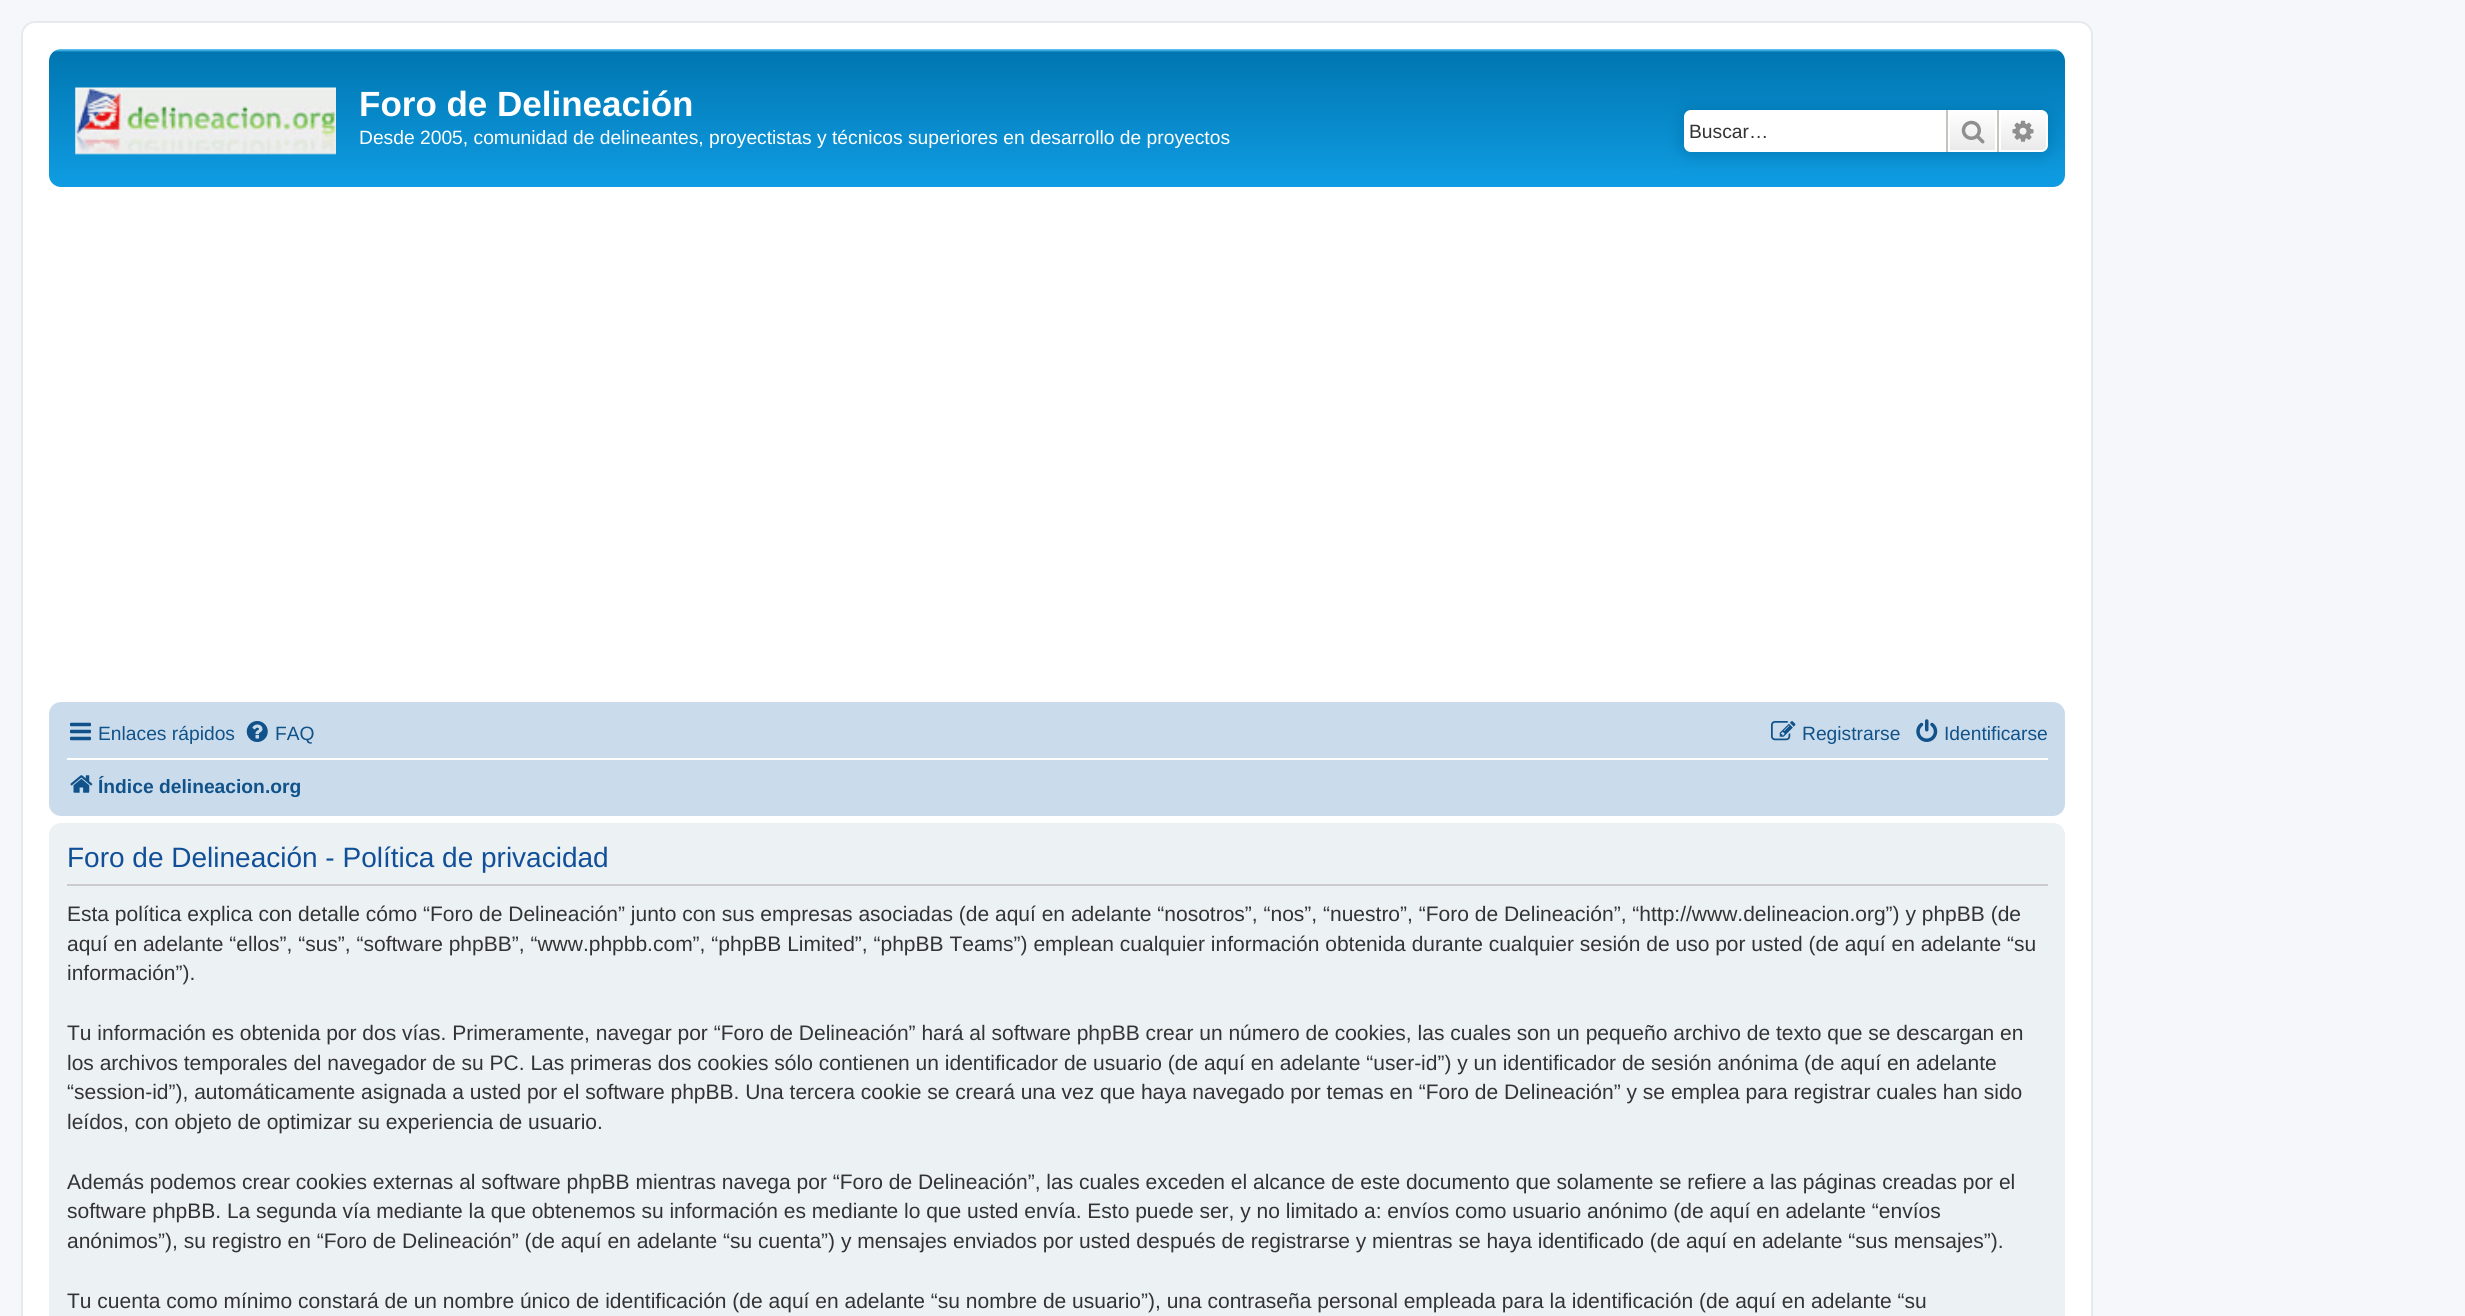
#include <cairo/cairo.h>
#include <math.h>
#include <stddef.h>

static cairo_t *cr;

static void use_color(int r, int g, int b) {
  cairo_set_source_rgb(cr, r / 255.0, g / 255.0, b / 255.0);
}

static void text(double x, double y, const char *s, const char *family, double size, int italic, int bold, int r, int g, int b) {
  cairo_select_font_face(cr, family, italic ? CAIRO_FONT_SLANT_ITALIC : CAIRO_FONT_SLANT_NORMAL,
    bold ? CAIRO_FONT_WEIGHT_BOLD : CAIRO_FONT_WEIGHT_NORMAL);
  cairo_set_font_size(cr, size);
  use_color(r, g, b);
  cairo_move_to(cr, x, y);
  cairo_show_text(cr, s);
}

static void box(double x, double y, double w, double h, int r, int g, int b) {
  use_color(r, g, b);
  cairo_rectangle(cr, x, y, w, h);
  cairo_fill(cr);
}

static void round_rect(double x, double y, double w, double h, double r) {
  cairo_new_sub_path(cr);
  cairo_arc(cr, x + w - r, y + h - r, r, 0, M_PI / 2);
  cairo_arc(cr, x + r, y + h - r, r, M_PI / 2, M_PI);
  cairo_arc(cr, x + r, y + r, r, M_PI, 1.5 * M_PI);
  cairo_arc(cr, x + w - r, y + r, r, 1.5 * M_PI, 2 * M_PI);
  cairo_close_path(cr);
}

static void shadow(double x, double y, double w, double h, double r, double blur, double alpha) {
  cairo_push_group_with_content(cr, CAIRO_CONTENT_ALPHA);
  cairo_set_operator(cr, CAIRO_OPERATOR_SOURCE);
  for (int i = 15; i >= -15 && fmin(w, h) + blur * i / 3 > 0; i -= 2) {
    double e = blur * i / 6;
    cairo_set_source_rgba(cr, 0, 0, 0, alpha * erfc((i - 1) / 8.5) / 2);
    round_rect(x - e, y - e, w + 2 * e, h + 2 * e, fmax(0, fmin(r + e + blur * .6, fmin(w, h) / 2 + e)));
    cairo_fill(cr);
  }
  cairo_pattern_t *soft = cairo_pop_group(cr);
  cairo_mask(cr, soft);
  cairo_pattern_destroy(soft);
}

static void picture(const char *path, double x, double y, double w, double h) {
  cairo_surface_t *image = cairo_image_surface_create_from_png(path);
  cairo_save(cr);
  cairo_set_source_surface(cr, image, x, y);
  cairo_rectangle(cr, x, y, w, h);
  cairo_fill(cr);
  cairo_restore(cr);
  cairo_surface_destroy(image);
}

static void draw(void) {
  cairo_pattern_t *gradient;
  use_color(245, 247, 250);
  cairo_paint(cr);
  use_color(255, 255, 255);
  round_rect(22, 22, 2070, 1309, 13);
  cairo_fill_preserve(cr);
  use_color(230, 233, 237);
  cairo_stroke(cr);
  gradient = cairo_pattern_create_linear(1057, 49, 1057, 210);
  cairo_pattern_add_color_stop_rgba(gradient, 0, 0.416, 0.808, 1, 1);
  cairo_pattern_add_color_stop_rgba(gradient, 0.02, 0, 0.463, 0.694, 1);
  cairo_pattern_add_color_stop_rgba(gradient, 1, 0.071, 0.639, 0.922, 1);
  cairo_set_source(cr, gradient);
  cairo_pattern_destroy(gradient);
  round_rect(49, 49, 2016, 138, 12);
  cairo_fill(cr);
  picture("img_01.png", 75, 87, 261, 68);
  use_color(0, 117, 176);
  shadow(1684, 110, 364, 42, 7, 9, 1);
  use_color(255, 255, 255);
  cairo_new_path(cr);
  cairo_move_to(cr, 1691, 110);
  cairo_line_to(cr, 1946, 110);
  cairo_line_to(cr, 1946, 152);
  cairo_line_to(cr, 1691, 152);
  cairo_curve_to(cr, 1687, 152, 1684, 149, 1684, 145);
  cairo_line_to(cr, 1684, 117);
  cairo_curve_to(cr, 1684, 113, 1687, 110, 1691, 110);
  cairo_close_path(cr);
  cairo_fill(cr);
  gradient = cairo_pattern_create_linear(1972, 110, 1972, 152);
  cairo_pattern_add_color_stop_rgba(gradient, 0, 1, 1, 1, 1);
  cairo_pattern_add_color_stop_rgba(gradient, 1, 0.914, 0.914, 0.914, 1);
  cairo_set_source(cr, gradient);
  cairo_pattern_destroy(gradient);
  cairo_rectangle(cr, 1950, 112, 45, 38);
  cairo_fill(cr);
  cairo_rectangle(cr, 1949, 111, 47, 40);
  use_color(255, 255, 255);
  cairo_stroke(cr);
  box(1997, 110, 2, 42, 199, 195, 191);
  box(1946, 110, 2, 42, 199, 195, 191);
  picture("img_02.png", 1961, 120, 24, 24);
  gradient = cairo_pattern_create_linear(2023, 110, 2023, 152);
  cairo_pattern_add_color_stop_rgba(gradient, 0, 1, 1, 1, 1);
  cairo_pattern_add_color_stop_rgba(gradient, 1, 0.914, 0.914, 0.914, 1);
  cairo_set_source(cr, gradient);
  cairo_pattern_destroy(gradient);
  cairo_new_path(cr);
  cairo_move_to(cr, 2000, 111);
  cairo_line_to(cr, 2041, 111);
  cairo_curve_to(cr, 2044.5, 111, 2047, 113.5, 2047, 117);
  cairo_line_to(cr, 2047, 145);
  cairo_curve_to(cr, 2047, 148.5, 2044.5, 151, 2041, 151);
  cairo_line_to(cr, 2000, 151);
  cairo_close_path(cr);
  cairo_fill_preserve(cr);
  use_color(255, 255, 255);
  cairo_stroke(cr);
  picture("img_03.png", 2012, 120, 22, 22);
  use_color(202, 220, 235);
  round_rect(49, 702, 2016, 114, 12);
  cairo_fill(cr);
  picture("img_04.png", 70, 722, 21, 19);
  picture("img_05.png", 246, 721, 22, 21);
  picture("img_06.png", 1771, 721, 25, 20);
  picture("img_07.png", 1916, 719, 22, 23);
  box(67, 758, 1981, 2, 255, 255, 255);
  picture("img_08.png", 70, 775, 23, 18);
  use_color(236, 241, 243);
  round_rect(49, 823, 2016, 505, 12);
  cairo_fill(cr);
  box(67, 884, 1981, 2, 204, 204, 204);
  text(359, 116, "Foro de Delineación", "Liberation Sans", 35, 0, 1, 255, 255, 255);
  text(359, 144, "Desde 2005, comunidad de delineantes, proyectistas y técnicos superiores en desarrollo de proyectos", "Liberation Sans", 19.25, 0, 0, 255, 255, 255);
  text(1689, 138, "Buscar…", "Liberation Sans", 19.25, 0, 0, 51, 51, 51);
  text(98, 740, "Enlaces rápidos", "Liberation Sans", 19.25, 0, 0, 16, 82, 137);
  text(275, 740, "FAQ", "Liberation Sans", 19.25, 0, 0, 16, 82, 137);
  text(1802, 740, "Registrarse", "Liberation Sans", 19.25, 0, 0, 16, 82, 137);
  text(1944, 740, "Identificarse", "Liberation Sans", 19.25, 0, 0, 16, 82, 137);
  text(98, 793, "Índice delineacion.org", "Liberation Sans", 19.25, 0, 1, 16, 82, 137);
  text(67, 867, "Foro de Delineación - Política de privacidad", "Liberation Sans", 28, 0, 0, 17, 80, 152);
  text(67, 921, "Esta política explica con detalle cómo “Foro de Delineación” junto con sus empresas asociadas (de aquí en adelante “nosotros”, “nos”, “nuestro”, “Foro de Delineación”, “http://www.delineacion.org”) y phpBB (de", "Liberation Sans", 21, 0, 0, 51, 51, 51);
  text(67, 951, "aquí en adelante “ellos”, “sus”, “software phpBB”, “www.phpbb.com”, “phpBB Limited”, “phpBB Teams”) emplean cualquier información obtenida durante cualquier sesión de uso por usted (de aquí en adelante “su", "Liberation Sans", 21, 0, 0, 51, 51, 51);
  text(67, 980, "información”).", "Liberation Sans", 21, 0, 0, 51, 51, 51);
  text(67, 1040, "Tu información es obtenida por dos vías. Primeramente, navegar por “Foro de Delineación” hará al software phpBB crear un número de cookies, las cuales son un pequeño archivo de texto que se descargan en", "Liberation Sans", 21, 0, 0, 51, 51, 51);
  text(67, 1070, "los archivos temporales del navegador de su PC. Las primeras dos cookies sólo contienen un identificador de usuario (de aquí en adelante “user-id”) y un identificador de sesión anónima (de aquí en adelante", "Liberation Sans", 21, 0, 0, 51, 51, 51);
  text(67, 1099, "“session-id”), automáticamente asignada a usted por el software phpBB. Una tercera cookie se creará una vez que haya navegado por temas en “Foro de Delineación” y se emplea para registrar cuales han sido", "Liberation Sans", 21, 0, 0, 51, 51, 51);
  text(67, 1129, "leídos, con objeto de optimizar su experiencia de usuario.", "Liberation Sans", 21, 0, 0, 51, 51, 51);
  text(67, 1189, "Además podemos crear cookies externas al software phpBB mientras navega por “Foro de Delineación”, las cuales exceden el alcance de este documento que solamente se refiere a las páginas creadas por el", "Liberation Sans", 21, 0, 0, 51, 51, 51);
  text(67, 1218, "software phpBB. La segunda vía mediante la que obtenemos su información es mediante lo que usted envía. Esto puede ser, y no limitado a: envíos como usuario anónimo (de aquí en adelante “envíos", "Liberation Sans", 21, 0, 0, 51, 51, 51);
  text(67, 1248, "anónimos”), su registro en “Foro de Delineación” (de aquí en adelante “su cuenta”) y mensajes enviados por usted después de registrarse y mientras se haya identificado (de aquí en adelante “sus mensajes”).", "Liberation Sans", 21, 0, 0, 51, 51, 51);
  text(67, 1308, "Tu cuenta como mínimo constará de un nombre único de identificación (de aquí en adelante “su nombre de usuario”), una contraseña personal empleada para la identificación (de aquí en adelante “su", "Liberation Sans", 21, 0, 0, 51, 51, 51);
}

int main(void) {
  cairo_surface_t *surface = cairo_image_surface_create(CAIRO_FORMAT_RGB24, 2465, 1316);
  cr = cairo_create(surface);
  cairo_font_options_t *options = cairo_font_options_create();
  cairo_font_options_set_hint_metrics(options, CAIRO_HINT_METRICS_OFF);
  cairo_font_options_set_hint_style(options, CAIRO_HINT_STYLE_NONE);
  cairo_set_font_options(cr, options);
  cairo_set_miter_limit(cr, 4);
  draw();
  cairo_surface_write_to_png(surface, "out.png");
  cairo_font_options_destroy(options);
  cairo_destroy(cr);
  cairo_surface_destroy(surface);
  return 0;
}
